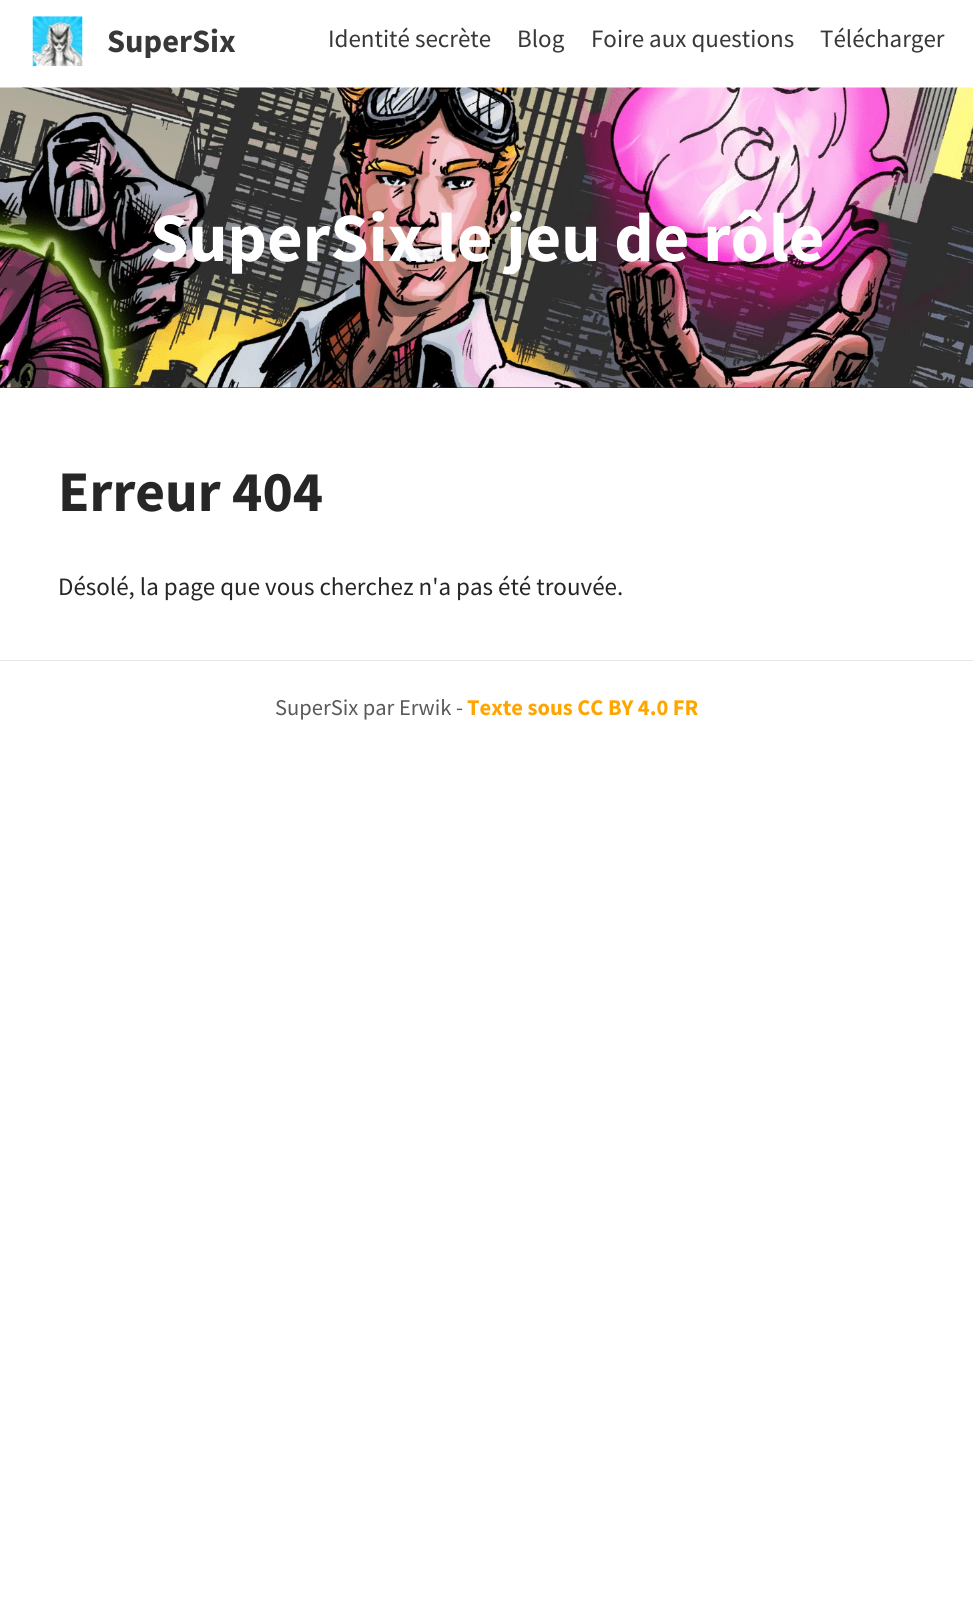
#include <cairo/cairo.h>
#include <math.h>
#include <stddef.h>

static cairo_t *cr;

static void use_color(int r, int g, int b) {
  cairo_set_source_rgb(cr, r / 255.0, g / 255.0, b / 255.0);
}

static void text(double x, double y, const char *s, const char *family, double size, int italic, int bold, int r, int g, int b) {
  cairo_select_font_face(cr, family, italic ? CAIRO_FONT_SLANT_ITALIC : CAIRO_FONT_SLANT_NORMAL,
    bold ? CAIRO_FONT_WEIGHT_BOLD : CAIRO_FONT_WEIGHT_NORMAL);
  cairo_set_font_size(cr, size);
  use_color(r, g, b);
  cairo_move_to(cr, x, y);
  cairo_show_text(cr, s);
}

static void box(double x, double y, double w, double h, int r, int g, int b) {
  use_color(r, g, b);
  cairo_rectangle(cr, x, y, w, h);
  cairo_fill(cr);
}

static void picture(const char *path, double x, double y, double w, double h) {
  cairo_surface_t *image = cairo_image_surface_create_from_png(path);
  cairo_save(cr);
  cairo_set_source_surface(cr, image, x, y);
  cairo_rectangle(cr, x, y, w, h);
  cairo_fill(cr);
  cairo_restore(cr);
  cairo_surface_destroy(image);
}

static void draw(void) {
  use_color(255, 255, 255);
  cairo_paint(cr);
  picture("img_01.png", 32, 16, 51, 51);
  box(0, 387, 973, 1, 36, 41, 46);
  picture("img_02.png", 0, 87, 973, 301);
  box(0, 660, 973, 1, 230, 230, 230);
  text(107, 52, "SuperSix", "Source Sans Pro", 32.5, 0, 1, 56, 56, 56);
  text(328, 47, "Identité secrète", "Source Sans Pro", 25, 0, 0, 56, 56, 56);
  text(517, 47, "Blog", "Source Sans Pro", 25, 0, 0, 56, 56, 56);
  text(591, 47, "Foire aux questions", "Source Sans Pro", 25, 0, 0, 56, 56, 56);
  text(820, 47, "Télécharger", "Source Sans Pro", 25, 0, 0, 56, 56, 56);
  text(150, 261, "SuperSix le jeu de rôle", "Source Sans Pro", 69, 0, 1, 255, 255, 255);
  text(58, 511, "Erreur 404", "Source Sans Pro", 57.5, 0, 1, 38, 38, 38);
  text(58, 595, "Désolé, la page que vous cherchez n'a pas été trouvée.", "Source Sans Pro", 25, 0, 0, 38, 38, 38);
  text(275, 715, "SuperSix par Erwik -", "Source Sans Pro", 22.5, 0, 0, 89, 89, 89);
  text(467, 715, "Texte sous CC BY 4.0 FR", "Source Sans Pro", 22.5, 0, 1, 255, 165, 0);
}

int main(void) {
  cairo_surface_t *surface = cairo_image_surface_create(CAIRO_FORMAT_RGB24, 973, 1606);
  cr = cairo_create(surface);
  cairo_font_options_t *options = cairo_font_options_create();
  cairo_font_options_set_hint_metrics(options, CAIRO_HINT_METRICS_OFF);
  cairo_font_options_set_hint_style(options, CAIRO_HINT_STYLE_NONE);
  cairo_set_font_options(cr, options);
  cairo_set_miter_limit(cr, 4);
  draw();
  cairo_surface_write_to_png(surface, "out.png");
  cairo_font_options_destroy(options);
  cairo_destroy(cr);
  cairo_surface_destroy(surface);
  return 0;
}
